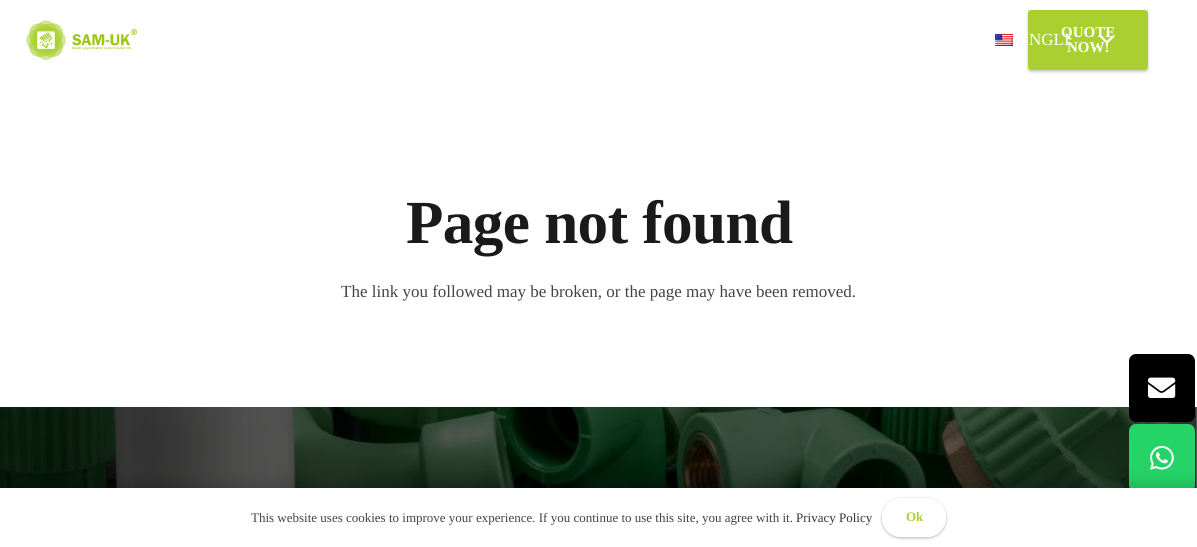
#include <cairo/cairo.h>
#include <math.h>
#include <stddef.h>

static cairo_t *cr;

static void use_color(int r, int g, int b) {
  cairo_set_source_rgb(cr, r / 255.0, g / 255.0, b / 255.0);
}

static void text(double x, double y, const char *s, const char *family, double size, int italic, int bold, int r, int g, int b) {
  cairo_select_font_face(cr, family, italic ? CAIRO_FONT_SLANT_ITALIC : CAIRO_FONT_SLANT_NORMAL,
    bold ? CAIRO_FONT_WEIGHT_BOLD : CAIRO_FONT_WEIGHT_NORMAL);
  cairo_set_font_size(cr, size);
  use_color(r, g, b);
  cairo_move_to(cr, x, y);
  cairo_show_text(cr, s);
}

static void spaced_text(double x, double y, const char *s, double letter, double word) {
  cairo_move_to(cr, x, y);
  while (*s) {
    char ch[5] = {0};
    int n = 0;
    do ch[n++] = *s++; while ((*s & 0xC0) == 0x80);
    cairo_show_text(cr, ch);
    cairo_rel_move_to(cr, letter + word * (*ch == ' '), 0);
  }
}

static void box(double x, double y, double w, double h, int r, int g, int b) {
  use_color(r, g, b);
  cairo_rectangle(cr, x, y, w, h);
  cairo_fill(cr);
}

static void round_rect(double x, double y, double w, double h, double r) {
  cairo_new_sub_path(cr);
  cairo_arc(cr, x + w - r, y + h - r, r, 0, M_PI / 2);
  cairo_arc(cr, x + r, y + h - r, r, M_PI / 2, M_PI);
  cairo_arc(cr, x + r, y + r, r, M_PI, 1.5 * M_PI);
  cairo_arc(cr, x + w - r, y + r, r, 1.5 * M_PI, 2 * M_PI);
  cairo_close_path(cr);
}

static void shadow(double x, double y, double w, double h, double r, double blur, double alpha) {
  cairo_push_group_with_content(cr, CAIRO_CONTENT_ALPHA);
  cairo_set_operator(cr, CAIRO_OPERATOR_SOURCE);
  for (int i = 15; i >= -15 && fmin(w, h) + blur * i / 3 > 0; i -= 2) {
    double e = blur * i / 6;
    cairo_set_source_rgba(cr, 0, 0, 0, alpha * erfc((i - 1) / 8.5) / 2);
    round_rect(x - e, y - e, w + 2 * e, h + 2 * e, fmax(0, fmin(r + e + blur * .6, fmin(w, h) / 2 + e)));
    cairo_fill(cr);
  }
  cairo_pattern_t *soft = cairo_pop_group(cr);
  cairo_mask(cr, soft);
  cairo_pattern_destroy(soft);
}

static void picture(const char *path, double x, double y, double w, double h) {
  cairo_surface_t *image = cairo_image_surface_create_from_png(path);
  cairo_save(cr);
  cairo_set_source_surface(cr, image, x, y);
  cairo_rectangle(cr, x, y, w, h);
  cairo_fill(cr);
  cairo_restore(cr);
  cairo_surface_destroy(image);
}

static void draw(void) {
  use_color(255, 255, 255);
  cairo_paint(cr);
  picture("img_01.png", 26, 20, 111, 40);
  picture("img_02.png", 995, 34, 18, 12);
  use_color(0, 0, 0);
  shadow(1028, 12, 120, 60, 3, 1.5, 0.2);
  use_color(169, 207, 49);
  round_rect(1028, 10, 120, 60, 3);
  cairo_fill(cr);
  picture("img_06.png", 0, 407, 1197, 81);
  use_color(0, 0, 0);
  round_rect(1129, 354, 66, 68, 7);
  cairo_fill(cr);
  picture("img_04.png", 1148, 377, 28, 21);
  use_color(37, 211, 102);
  round_rect(1129, 424, 66, 68, 7);
  cairo_fill(cr);
  picture("img_05.png", 1150, 445, 24, 25);
  use_color(0, 0, 0);
  shadow(0, 483, 1197, 59, 0, 7.5, 0.15);
  box(0, 488, 1197, 59, 255, 255, 255);
  cairo_save(cr);
  cairo_set_fill_rule(cr, CAIRO_FILL_RULE_EVEN_ODD);
  cairo_new_path(cr);
  cairo_move_to(cr, 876, 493);
  cairo_line_to(cr, 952, 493);
  cairo_line_to(cr, 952, 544);
  cairo_line_to(cr, 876, 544);
  cairo_close_path(cr);
  cairo_move_to(cr, 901.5, 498);
  cairo_line_to(cr, 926.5, 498);
  cairo_curve_to(cr, 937.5, 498, 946, 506.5, 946, 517.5);
  cairo_curve_to(cr, 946, 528.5, 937.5, 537, 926.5, 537);
  cairo_line_to(cr, 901.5, 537);
  cairo_curve_to(cr, 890.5, 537, 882, 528.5, 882, 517.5);
  cairo_curve_to(cr, 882, 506.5, 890.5, 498, 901.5, 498);
  cairo_close_path(cr);
  cairo_clip(cr);
  use_color(0, 0, 0);
  shadow(882, 499, 64, 39, 19.5, 1.5, 0.3);
  cairo_restore(cr);
  round_rect(883, 499, 62, 37, 18.5);
  cairo_stroke(cr);
  text(1061, 37, "QUOTE", "Liberation Serif", 15, 0, 1, 255, 255, 255);
  text(1029, 45, "NGLI", "Liberation Serif", 17, 0, 0, 255, 255, 255);
  text(1067, 52, "NOW!", "Liberation Serif", 15, 0, 1, 255, 255, 255);
  picture("img_03.png", 1100, 35, 14, 9);
  cairo_set_font_size(cr, 61.25);
  use_color(26, 26, 26);
  spaced_text(406, 243, "Page not found", -0.6, 0);
  text(341, 297, "The link you followed may be broken, or the page may have been removed.", "Liberation Serif", 17, 0, 0, 68, 68, 68);
  text(251, 522, "This website uses cookies to improve your experience. If you continue to use this site, you agree with it.", "Liberation Serif", 13, 0, 0, 68, 68, 68);
  text(796, 522, "Privacy Policy", "Liberation Serif", 13, 0, 0, 51, 51, 51);
  text(906, 521, "Ok", "Liberation Serif", 13, 0, 1, 169, 207, 49);
}

int main(void) {
  cairo_surface_t *surface = cairo_image_surface_create(CAIRO_FORMAT_RGB24, 1197, 547);
  cr = cairo_create(surface);
  cairo_font_options_t *options = cairo_font_options_create();
  cairo_font_options_set_hint_metrics(options, CAIRO_HINT_METRICS_OFF);
  cairo_font_options_set_hint_style(options, CAIRO_HINT_STYLE_NONE);
  cairo_set_font_options(cr, options);
  cairo_set_miter_limit(cr, 4);
  draw();
  cairo_surface_write_to_png(surface, "out.png");
  cairo_font_options_destroy(options);
  cairo_destroy(cr);
  cairo_surface_destroy(surface);
  return 0;
}
